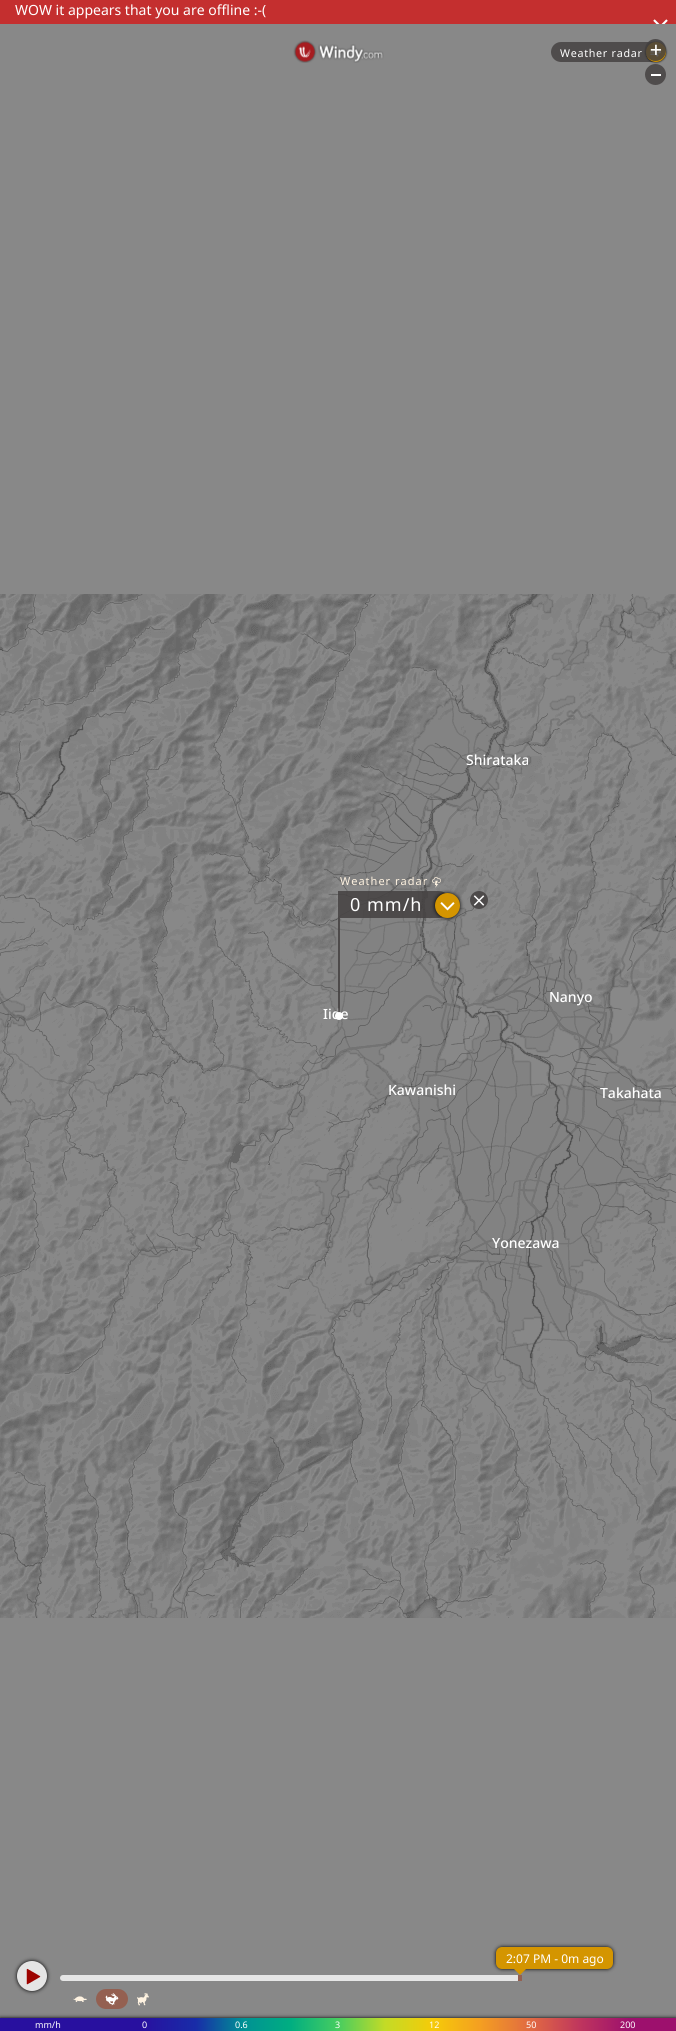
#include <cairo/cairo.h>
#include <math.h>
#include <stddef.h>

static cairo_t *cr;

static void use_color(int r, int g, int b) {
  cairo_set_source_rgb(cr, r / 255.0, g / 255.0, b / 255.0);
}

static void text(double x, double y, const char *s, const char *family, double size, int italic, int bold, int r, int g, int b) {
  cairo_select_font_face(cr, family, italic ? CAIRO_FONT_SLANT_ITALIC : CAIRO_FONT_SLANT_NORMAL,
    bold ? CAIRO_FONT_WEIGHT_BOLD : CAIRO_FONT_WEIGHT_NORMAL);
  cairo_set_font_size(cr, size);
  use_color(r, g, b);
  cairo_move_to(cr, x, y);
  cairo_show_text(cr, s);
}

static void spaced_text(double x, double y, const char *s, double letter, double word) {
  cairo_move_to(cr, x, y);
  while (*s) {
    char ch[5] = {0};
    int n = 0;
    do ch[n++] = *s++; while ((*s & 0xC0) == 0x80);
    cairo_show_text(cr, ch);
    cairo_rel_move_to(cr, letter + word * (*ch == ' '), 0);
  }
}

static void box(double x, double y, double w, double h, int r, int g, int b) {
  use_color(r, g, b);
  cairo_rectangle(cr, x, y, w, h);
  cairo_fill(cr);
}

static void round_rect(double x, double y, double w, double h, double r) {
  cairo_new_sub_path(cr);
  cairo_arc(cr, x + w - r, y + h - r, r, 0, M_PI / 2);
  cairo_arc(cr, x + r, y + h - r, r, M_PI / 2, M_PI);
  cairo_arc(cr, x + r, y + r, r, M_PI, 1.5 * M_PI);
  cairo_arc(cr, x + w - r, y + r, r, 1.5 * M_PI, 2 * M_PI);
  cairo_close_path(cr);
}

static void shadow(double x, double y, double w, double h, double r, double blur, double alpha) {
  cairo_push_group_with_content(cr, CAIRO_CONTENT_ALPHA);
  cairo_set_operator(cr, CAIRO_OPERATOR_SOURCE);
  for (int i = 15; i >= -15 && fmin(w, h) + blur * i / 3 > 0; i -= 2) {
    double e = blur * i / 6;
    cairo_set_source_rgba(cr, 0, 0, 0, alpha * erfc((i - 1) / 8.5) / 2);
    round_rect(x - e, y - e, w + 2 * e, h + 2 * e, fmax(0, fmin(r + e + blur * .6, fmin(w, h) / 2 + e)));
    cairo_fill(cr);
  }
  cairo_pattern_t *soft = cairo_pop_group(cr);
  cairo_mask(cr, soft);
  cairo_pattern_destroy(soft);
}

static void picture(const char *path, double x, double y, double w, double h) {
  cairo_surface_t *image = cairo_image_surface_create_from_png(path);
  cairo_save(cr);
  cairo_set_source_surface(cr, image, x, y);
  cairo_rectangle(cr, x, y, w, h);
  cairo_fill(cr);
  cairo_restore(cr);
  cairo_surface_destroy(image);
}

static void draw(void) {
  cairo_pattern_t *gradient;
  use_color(136, 136, 136);
  cairo_paint(cr);
  box(0, 0, 676, 24, 196, 47, 47);
  picture("img_01.png", 653, 19, 15, 5);
  picture("img_02.png", 293, 40, 24, 23);
  picture("img_03.png", 318, 44, 66, 19);
  use_color(79, 76, 76);
  round_rect(551, 42, 115, 20, 10);
  cairo_fill(cr);
  use_color(0, 0, 0);
  shadow(646, 42, 20, 20, 10, 1, 1);
  use_color(212, 149, 0);
  cairo_arc(cr, 656, 52, 10, 0, 2 * M_PI);
  cairo_fill(cr);
  picture("img_04.png", 650, 50, 11, 7);
  cairo_set_source_rgba(cr, 0.267, 0.255, 0.255, 0.84);
  round_rect(645, 39, 21, 22, 10.5);
  cairo_fill(cr);
  picture("img_05.png", 650, 44, 12, 11);
  use_color(79, 76, 76);
  cairo_arc(cr, 655.5, 74.5, 10.5, 0, 2 * M_PI);
  cairo_fill(cr);
  box(651, 74, 10, 2, 255, 255, 255);
  picture("img_06.png", 0, 594, 242, 256);
  picture("img_07.png", 242, 594, 256, 256);
  picture("img_08.png", 498, 594, 178, 256);
  picture("img_09.png", 0, 850, 242, 256);
  picture("img_10.png", 242, 850, 256, 256);
  picture("img_11.png", 498, 850, 178, 256);
  picture("img_12.png", 0, 1106, 242, 256);
  picture("img_13.png", 242, 1106, 256, 256);
  picture("img_14.png", 498, 1106, 178, 256);
  picture("img_15.png", 0, 1362, 242, 256);
  picture("img_16.png", 242, 1362, 256, 256);
  picture("img_17.png", 498, 1362, 178, 256);
  cairo_set_source_rgba(cr, 0.267, 0.255, 0.255, 0.84);
  cairo_new_path(cr);
  cairo_move_to(cr, 340, 891);
  cairo_line_to(cr, 438.5, 891);
  cairo_curve_to(cr, 446, 891, 452, 897, 452, 904.5);
  cairo_curve_to(cr, 452, 912, 446, 918, 438.5, 918);
  cairo_line_to(cr, 340, 918);
  cairo_close_path(cr);
  cairo_fill(cr);
  picture("img_18.png", 432, 876, 9, 12);
  use_color(0, 0, 0);
  shadow(435, 893, 25, 25, 12.5, 2, 1);
  use_color(212, 149, 0);
  cairo_arc(cr, 447.5, 905.5, 12.5, 0, 2 * M_PI);
  cairo_fill(cr);
  picture("img_19.png", 440, 902, 15, 9);
  cairo_set_source_rgba(cr, 0.267, 0.255, 0.255, 0.84);
  cairo_arc(cr, 479, 900, 9, 0, 2 * M_PI);
  cairo_fill(cr);
  picture("img_20.png", 473, 895, 12, 11);
  use_color(0, 0, 0);
  shadow(17, 1961, 30, 30, 15, 2, 1);
  use_color(229, 229, 229);
  cairo_arc(cr, 32, 1976, 15, 0, 2 * M_PI);
  cairo_fill(cr);
  picture("img_21.png", 26, 1968, 15, 17);
  round_rect(60, 1975, 460, 6, 3);
  cairo_fill(cr);
  use_color(0, 0, 0);
  shadow(496, 1947, 117, 22, 6, 2, 1);
  use_color(212, 149, 0);
  round_rect(496, 1947, 117, 22, 6);
  cairo_fill(cr);
  cairo_new_path(cr);
  cairo_move_to(cr, 514, 1969);
  cairo_line_to(cr, 526, 1969);
  cairo_line_to(cr, 520, 1975);
  cairo_close_path(cr);
  cairo_fill(cr);
  box(518, 1975, 4, 6, 148, 96, 81);
  picture("img_22.png", 73, 1996, 14, 6);
  round_rect(96, 1989, 32, 20, 10);
  cairo_fill(cr);
  picture("img_23.png", 105, 1993, 14, 13);
  picture("img_24.png", 137, 1993, 12, 13);
  use_color(0, 0, 0);
  shadow(0, 2018, 676, 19, 0, 2, 1);
  gradient = cairo_pattern_create_linear(0, 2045, 676, 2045);
  cairo_pattern_add_color_stop_rgba(gradient, 0, 0.157, 0.063, 0.624, 1);
  cairo_pattern_add_color_stop_rgba(gradient, 0.21, 0.157, 0.063, 0.624, 1);
  cairo_pattern_add_color_stop_rgba(gradient, 0.29, 0.094, 0.173, 0.659, 1);
  cairo_pattern_add_color_stop_rgba(gradient, 0.36, 0, 0.569, 0.58, 1);
  cairo_pattern_add_color_stop_rgba(gradient, 0.43, 0, 0.682, 0.506, 1);
  cairo_pattern_add_color_stop_rgba(gradient, 0.5, 0.275, 0.804, 0.376, 1);
  cairo_pattern_add_color_stop_rgba(gradient, 0.57, 0.765, 0.859, 0.149, 1);
  cairo_pattern_add_color_stop_rgba(gradient, 0.64, 0.961, 0.796, 0.031, 1);
  cairo_pattern_add_color_stop_rgba(gradient, 0.71, 0.957, 0.624, 0.129, 1);
  cairo_pattern_add_color_stop_rgba(gradient, 0.79, 0.875, 0.4, 0.267, 1);
  cairo_pattern_add_color_stop_rgba(gradient, 0.86, 0.745, 0.204, 0.369, 1);
  cairo_pattern_add_color_stop_rgba(gradient, 0.93, 0.616, 0.063, 0.427, 1);
  cairo_pattern_add_color_stop_rgba(gradient, 1, 0.616, 0.063, 0.427, 1);
  cairo_set_source(cr, gradient);
  cairo_pattern_destroy(gradient);
  cairo_rectangle(cr, 0, 2018, 676, 13);
  cairo_fill(cr);
  text(15, 15, "WOW it appears that you are offline :-(", "Noto Sans", 14, 0, 0, 255, 255, 255);
  cairo_set_font_size(cr, 10.75);
  spaced_text(560, 57, "Weather radar", 0.7, 0);
  text(466, 765, "Shirataka", "Noto Sans Medium", 14, 0, 0, 255, 255, 255);
  text(323, 1019, "Iide", "Noto Sans Medium", 14, 0, 0, 255, 255, 255);
  text(388, 1095, "Kawanishi", "Noto Sans Medium", 14, 0, 0, 255, 255, 255);
  text(549, 1002, "Nanyo", "Noto Sans Medium", 14, 0, 0, 255, 255, 255);
  text(600, 1098, "Takahata", "Noto Sans Medium", 14, 0, 0, 255, 255, 255);
  text(492, 1248, "Yonezawa", "Noto Sans Medium", 14, 0, 0, 255, 255, 255);
  cairo_set_source_rgba(cr, 0.267, 0.255, 0.255, 0.84);
  cairo_rectangle(cr, 338, 891, 2, 125);
  cairo_fill(cr);
  use_color(255, 255, 255);
  cairo_arc(cr, 339, 1016, 4, 0, 2 * M_PI);
  cairo_fill(cr);
  cairo_select_font_face(cr, "Noto Sans", CAIRO_FONT_SLANT_NORMAL, CAIRO_FONT_WEIGHT_NORMAL);
  cairo_set_font_size(cr, 11);
  use_color(255, 243, 225);
  spaced_text(340, 885, "Weather radar", 1, 0);
  cairo_set_font_size(cr, 18);
  use_color(255, 255, 255);
  spaced_text(350, 911, "0 mm/h", 1, 0);
  text(506, 1963, "2:07 PM - 0m ago", "Noto Sans", 12, 0, 0, 255, 255, 255);
  text(35, 2028, "mm/h", "Noto Sans", 9, 0, 0, 255, 255, 255);
  text(142, 2028, "0", "Noto Sans", 9, 0, 0, 255, 255, 255);
  text(235, 2028, "0.6", "Noto Sans", 9, 0, 0, 255, 255, 255);
  text(335, 2028, "3", "Noto Sans", 9, 0, 0, 255, 255, 255);
  text(429, 2028, "12", "Noto Sans", 9, 0, 0, 255, 255, 255);
  text(526, 2028, "50", "Noto Sans", 9, 0, 0, 255, 255, 255);
  text(620, 2028, "200", "Noto Sans", 9, 0, 0, 255, 255, 255);
}

int main(void) {
  cairo_surface_t *surface = cairo_image_surface_create(CAIRO_FORMAT_RGB24, 676, 2031);
  cr = cairo_create(surface);
  cairo_font_options_t *options = cairo_font_options_create();
  cairo_font_options_set_hint_metrics(options, CAIRO_HINT_METRICS_OFF);
  cairo_font_options_set_hint_style(options, CAIRO_HINT_STYLE_NONE);
  cairo_set_font_options(cr, options);
  cairo_set_miter_limit(cr, 4);
  draw();
  cairo_surface_write_to_png(surface, "out.png");
  cairo_font_options_destroy(options);
  cairo_destroy(cr);
  cairo_surface_destroy(surface);
  return 0;
}
